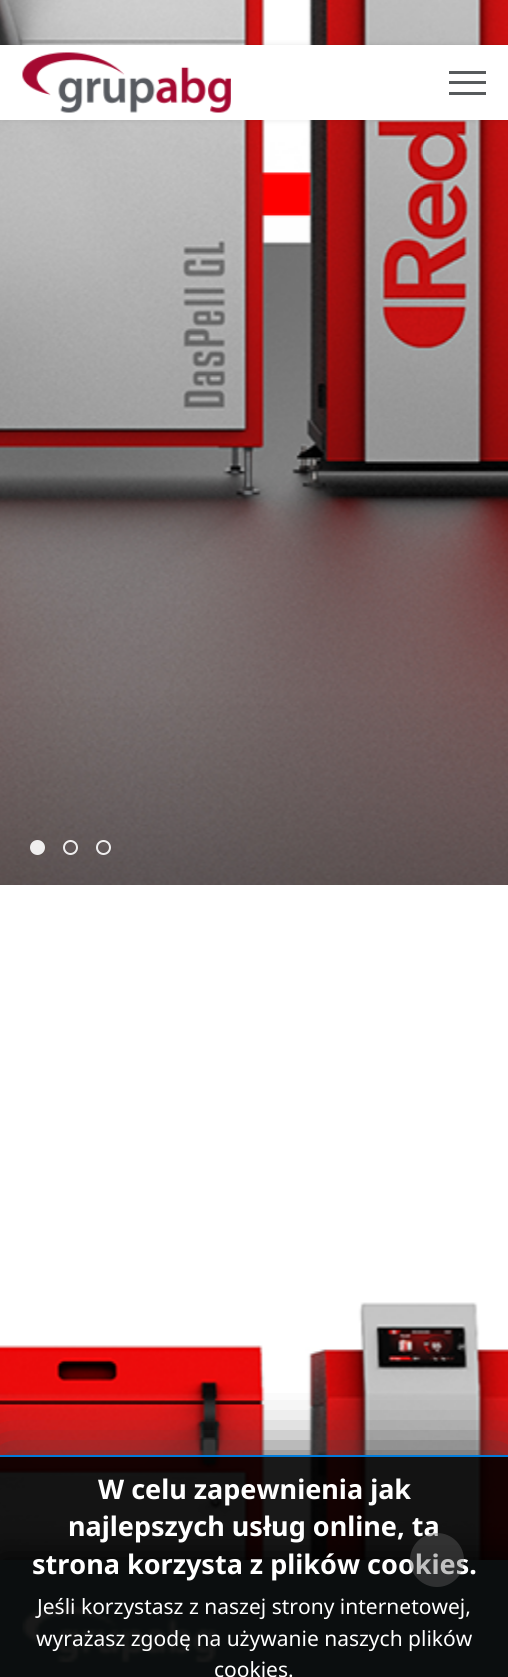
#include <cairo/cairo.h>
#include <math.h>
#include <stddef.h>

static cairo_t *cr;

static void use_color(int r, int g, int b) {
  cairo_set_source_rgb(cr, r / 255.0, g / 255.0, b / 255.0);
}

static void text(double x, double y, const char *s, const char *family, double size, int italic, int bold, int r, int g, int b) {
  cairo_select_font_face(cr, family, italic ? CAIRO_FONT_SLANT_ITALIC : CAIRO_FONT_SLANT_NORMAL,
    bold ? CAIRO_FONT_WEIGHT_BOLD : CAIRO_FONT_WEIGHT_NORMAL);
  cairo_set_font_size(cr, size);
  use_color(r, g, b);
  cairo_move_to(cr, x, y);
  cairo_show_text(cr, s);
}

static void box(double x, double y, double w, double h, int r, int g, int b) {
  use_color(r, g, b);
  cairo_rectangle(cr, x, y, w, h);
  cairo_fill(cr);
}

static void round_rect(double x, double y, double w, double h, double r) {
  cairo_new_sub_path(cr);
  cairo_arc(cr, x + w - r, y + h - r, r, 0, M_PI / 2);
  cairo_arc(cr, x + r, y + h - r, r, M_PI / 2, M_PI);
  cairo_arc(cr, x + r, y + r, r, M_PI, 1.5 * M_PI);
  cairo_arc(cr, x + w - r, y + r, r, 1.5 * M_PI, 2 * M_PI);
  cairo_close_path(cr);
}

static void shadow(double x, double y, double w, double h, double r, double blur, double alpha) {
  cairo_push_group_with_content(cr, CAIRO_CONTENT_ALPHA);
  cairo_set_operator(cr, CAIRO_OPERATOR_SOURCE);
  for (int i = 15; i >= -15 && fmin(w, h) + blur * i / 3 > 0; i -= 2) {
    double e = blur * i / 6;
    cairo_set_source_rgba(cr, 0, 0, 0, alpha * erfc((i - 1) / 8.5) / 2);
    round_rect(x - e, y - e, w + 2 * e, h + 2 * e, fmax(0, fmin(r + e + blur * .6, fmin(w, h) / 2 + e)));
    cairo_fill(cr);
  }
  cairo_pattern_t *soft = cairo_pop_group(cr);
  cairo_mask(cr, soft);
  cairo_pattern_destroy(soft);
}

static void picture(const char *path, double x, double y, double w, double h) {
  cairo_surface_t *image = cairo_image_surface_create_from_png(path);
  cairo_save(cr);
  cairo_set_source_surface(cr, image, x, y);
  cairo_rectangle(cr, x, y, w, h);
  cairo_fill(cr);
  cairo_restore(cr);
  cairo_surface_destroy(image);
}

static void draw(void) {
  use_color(255, 255, 255);
  cairo_paint(cr);
  picture("img_01.png", 0, 0, 508, 885);
  cairo_set_source_rgba(cr, 1, 1, 1, 0.9);
  cairo_arc(cr, 37.5, 847.5, 7.5, 0, 2 * M_PI);
  cairo_fill(cr);
  cairo_arc(cr, 70.5, 847.5, 6.5, 0, 2 * M_PI);
  cairo_stroke(cr);
  cairo_arc(cr, 103.5, 847.5, 6.5, 0, 2 * M_PI);
  cairo_stroke(cr);
  picture("img_02.png", 0, 885, 508, 675);
  use_color(0, 0, 0);
  shadow(0, 45, 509, 75, 0, 3, 0.1);
  box(0, 45, 508, 75, 255, 255, 255);
  picture("img_03.png", 22, 52, 209, 61);
  box(449, 71, 37, 3, 87, 90, 92);
  box(449, 81, 37, 3, 87, 90, 92);
  box(449, 92, 37, 3, 87, 90, 92);
  use_color(0, 0, 0);
  shadow(0, 1560, 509, 117, 0, 18, 1);
  box(0, 1560, 508, 117, 108, 145, 148);
  picture("img_04.png", 22, 1606, 195, 57);
  cairo_save(cr);
  cairo_rectangle(cr, 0, 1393, 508, 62);
  cairo_clip(cr);
  use_color(68, 68, 68);
  shadow(0, 1455, 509, 222, 0, 30, 1);
  cairo_restore(cr);
  cairo_set_source_rgba(cr, 0, 0, 0, 0.9);
  cairo_rectangle(cr, 0, 1455, 508, 222);
  cairo_fill(cr);
  cairo_set_source_rgba(cr, 0, 0.537, 0.949, 0.9);
  cairo_rectangle(cr, 0, 1455, 508, 2);
  cairo_fill(cr);
  text(98, 1499, "W celu zapewnienia jak", "Noto Sans", 27, 0, 1, 255, 255, 255);
  text(68, 1536, "najlepszych usług online, ta", "Noto Sans", 27, 0, 1, 255, 255, 255);
  text(32, 1574, "strona korzysta z plików cookies.", "Noto Sans", 27, 0, 1, 255, 255, 255);
  text(37, 1614, "Jeśli korzystasz z naszej strony internetowej,", "Noto Sans", 21, 0, 0, 255, 255, 255);
  text(36, 1646, "wyrażasz zgodę na używanie naszych plików", "Noto Sans", 21, 0, 0, 255, 255, 255);
  text(214, 1677, "cookies.", "Noto Sans", 21, 0, 0, 255, 255, 255);
  cairo_set_source_rgba(cr, 0.392, 0.392, 0.392, 0.4);
  cairo_new_path(cr);
  cairo_arc(cr, 437, 1560, 27, 0, 2 * M_PI);
  cairo_fill(cr);
}

int main(void) {
  cairo_surface_t *surface = cairo_image_surface_create(CAIRO_FORMAT_RGB24, 508, 1677);
  cr = cairo_create(surface);
  cairo_font_options_t *options = cairo_font_options_create();
  cairo_font_options_set_hint_metrics(options, CAIRO_HINT_METRICS_OFF);
  cairo_font_options_set_hint_style(options, CAIRO_HINT_STYLE_NONE);
  cairo_set_font_options(cr, options);
  cairo_set_miter_limit(cr, 4);
  draw();
  cairo_surface_write_to_png(surface, "out.png");
  cairo_font_options_destroy(options);
  cairo_destroy(cr);
  cairo_surface_destroy(surface);
  return 0;
}
